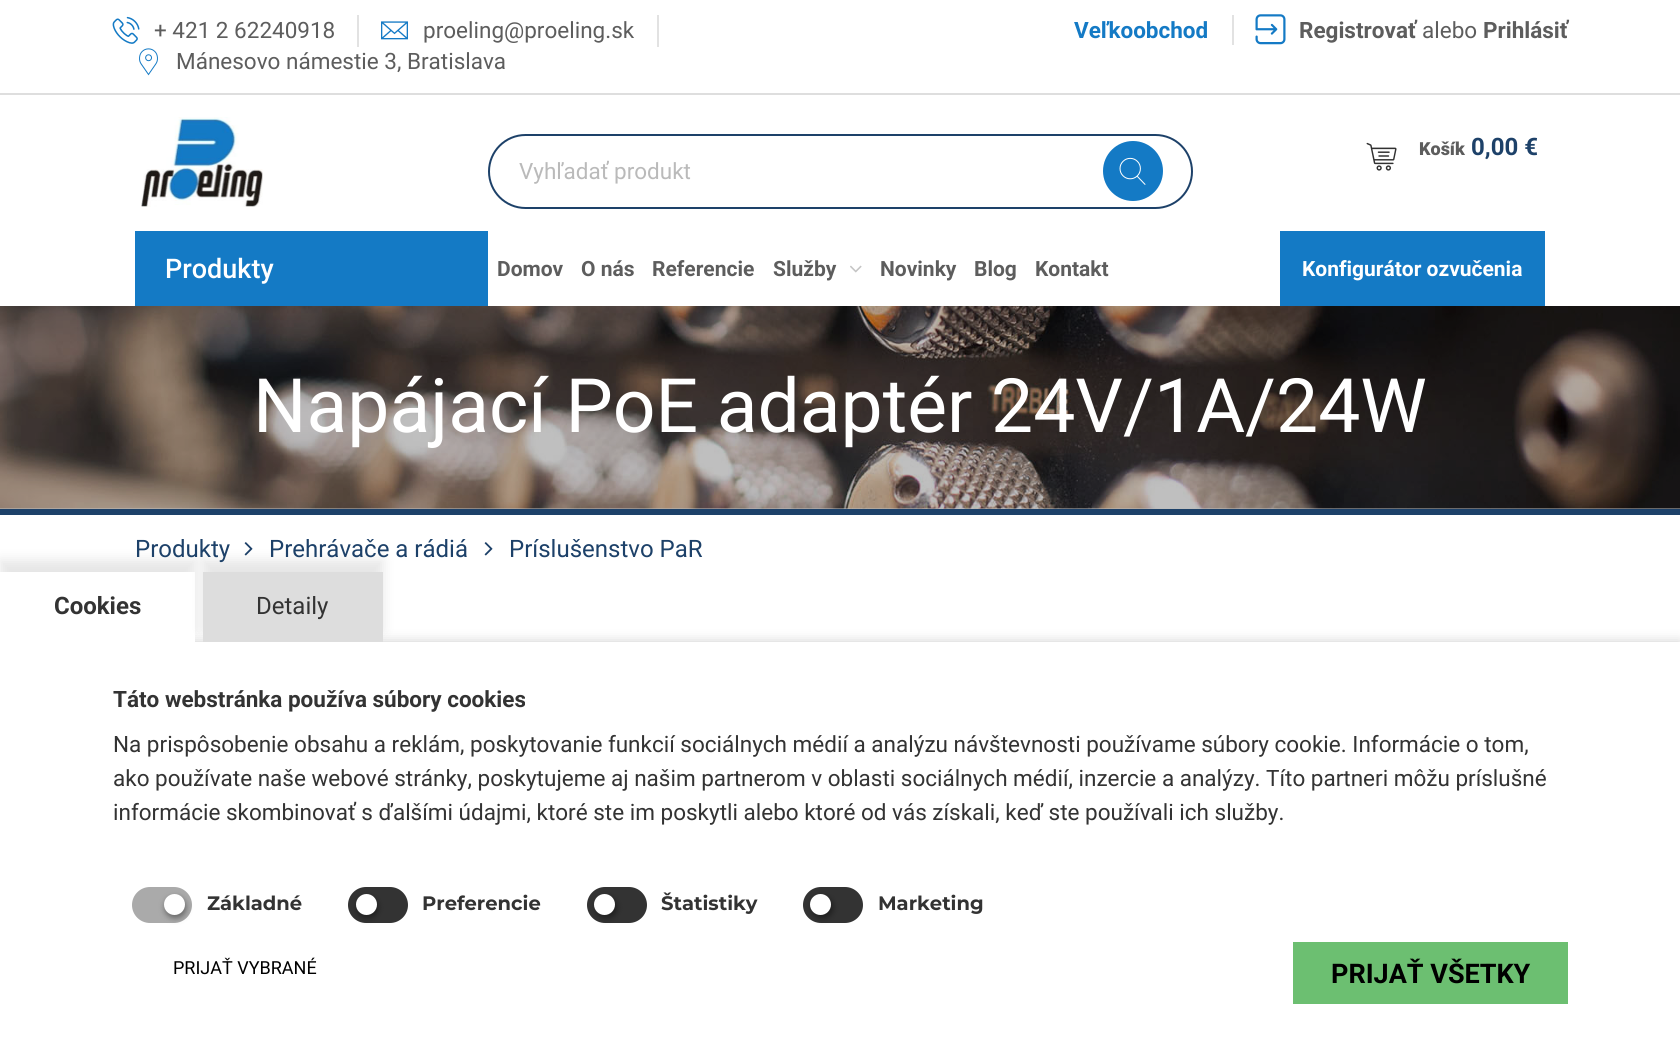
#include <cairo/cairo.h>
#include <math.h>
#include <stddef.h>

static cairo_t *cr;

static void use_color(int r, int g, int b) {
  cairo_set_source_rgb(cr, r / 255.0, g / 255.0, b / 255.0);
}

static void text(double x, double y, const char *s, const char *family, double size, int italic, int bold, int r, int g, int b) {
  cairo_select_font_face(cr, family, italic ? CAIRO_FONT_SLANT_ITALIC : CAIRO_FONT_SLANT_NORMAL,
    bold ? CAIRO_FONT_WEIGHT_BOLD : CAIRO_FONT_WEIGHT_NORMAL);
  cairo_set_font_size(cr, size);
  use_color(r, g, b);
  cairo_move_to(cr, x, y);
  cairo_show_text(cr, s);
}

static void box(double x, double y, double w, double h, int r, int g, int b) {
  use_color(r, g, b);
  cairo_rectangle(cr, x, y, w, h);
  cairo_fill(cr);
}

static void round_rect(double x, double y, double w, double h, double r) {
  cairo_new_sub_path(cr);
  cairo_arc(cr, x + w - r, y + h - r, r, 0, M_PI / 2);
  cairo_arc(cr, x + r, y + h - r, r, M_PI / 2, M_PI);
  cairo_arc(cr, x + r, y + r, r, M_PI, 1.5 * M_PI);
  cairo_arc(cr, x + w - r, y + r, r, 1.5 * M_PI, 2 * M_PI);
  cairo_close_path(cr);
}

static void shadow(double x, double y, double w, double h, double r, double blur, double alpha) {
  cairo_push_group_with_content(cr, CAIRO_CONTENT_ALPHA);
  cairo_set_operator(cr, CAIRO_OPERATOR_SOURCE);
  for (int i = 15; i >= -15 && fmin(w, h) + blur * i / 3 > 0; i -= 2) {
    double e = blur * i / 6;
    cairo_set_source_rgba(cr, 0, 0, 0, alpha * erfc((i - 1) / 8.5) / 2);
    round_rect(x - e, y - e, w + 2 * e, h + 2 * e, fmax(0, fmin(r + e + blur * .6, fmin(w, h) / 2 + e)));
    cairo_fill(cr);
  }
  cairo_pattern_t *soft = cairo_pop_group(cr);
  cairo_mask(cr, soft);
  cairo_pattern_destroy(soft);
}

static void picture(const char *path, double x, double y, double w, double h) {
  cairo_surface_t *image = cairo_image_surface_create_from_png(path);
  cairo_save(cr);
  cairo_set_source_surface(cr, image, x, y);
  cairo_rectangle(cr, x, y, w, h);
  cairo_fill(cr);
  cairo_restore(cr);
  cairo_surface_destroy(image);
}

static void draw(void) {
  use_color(255, 255, 255);
  cairo_paint(cr);
  box(0, 508, 1680, 1, 191, 191, 191);
  box(0, 93, 1680, 2, 222, 222, 222);
  box(357, 15, 2, 32, 226, 226, 226);
  picture("img_01.png", 112, 16, 28, 28);
  box(657, 15, 2, 32, 226, 226, 226);
  picture("img_02.png", 381, 21, 27, 19);
  picture("img_03.png", 139, 48, 19, 28);
  box(1232, 15, 2, 30, 226, 226, 226);
  picture("img_04.png", 1255, 14, 31, 31);
  picture("img_05.png", 141, 117, 122, 90);
  picture("img_06.png", 1366, 142, 31, 29);
  round_rect(489, 135, 703, 73, 36.5);
  use_color(29, 65, 105);
  cairo_stroke(cr);
  use_color(20, 122, 197);
  cairo_arc(cr, 1133, 171, 30, 0, 2 * M_PI);
  cairo_fill(cr);
  picture("img_07.png", 1119, 157, 27, 28);
  box(135, 231, 353, 75, 20, 122, 197);
  picture("img_08.png", 850, 265, 12, 8);
  box(1280, 231, 265, 75, 20, 122, 197);
  picture("img_09.png", 0, 306, 1680, 203);
  box(0, 509, 1680, 6, 29, 65, 105);
  picture("img_10.png", 244, 542, 9, 14);
  picture("img_10.png", 484, 542, 9, 14);
  use_color(0, 0, 0);
  shadow(0, 642, 1680, 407, 0, 6, 0.2);
  box(0, 642, 1680, 406, 255, 255, 255);
  use_color(0, 0, 0);
  shadow(0, 560, 195, 70, 0, 6, 0.1);
  box(0, 572, 195, 70, 255, 255, 255);
  use_color(0, 0, 0);
  shadow(203, 560, 180, 70, 0, 6, 0.1);
  box(203, 572, 180, 70, 221, 221, 221);
  use_color(170, 170, 170);
  round_rect(132, 887, 60, 36, 18);
  cairo_fill(cr);
  use_color(0, 0, 0);
  shadow(165, 897, 21, 21, 10.5, 3, 0.4);
  use_color(255, 255, 255);
  cairo_arc(cr, 174.5, 904.5, 10.5, 0, 2 * M_PI);
  cairo_fill(cr);
  use_color(51, 51, 51);
  round_rect(348, 887, 60, 36, 18);
  cairo_fill(cr);
  use_color(0, 0, 0);
  shadow(357, 897, 21, 21, 10.5, 3, 0.4);
  use_color(255, 255, 255);
  cairo_arc(cr, 366.5, 904.5, 10.5, 0, 2 * M_PI);
  cairo_fill(cr);
  use_color(51, 51, 51);
  round_rect(587, 887, 60, 36, 18);
  cairo_fill(cr);
  use_color(0, 0, 0);
  shadow(596, 897, 21, 21, 10.5, 3, 0.4);
  use_color(255, 255, 255);
  cairo_arc(cr, 604.5, 904.5, 10.5, 0, 2 * M_PI);
  cairo_fill(cr);
  use_color(51, 51, 51);
  round_rect(803, 887, 60, 36, 18);
  cairo_fill(cr);
  use_color(0, 0, 0);
  shadow(812, 897, 21, 21, 10.5, 3, 0.4);
  use_color(255, 255, 255);
  cairo_arc(cr, 820.5, 904.5, 10.5, 0, 2 * M_PI);
  cairo_fill(cr);
  box(1293, 942, 275, 62, 108, 191, 113);
  text(154, 38, "+ 421 2 62240918", "Roboto", 22.5, 0, 0, 93, 93, 93);
  text(423, 38, "proeling@proeling.sk", "Roboto", 22.5, 0, 0, 93, 93, 93);
  text(176, 69, "Mánesovo námestie 3, Bratislava", "Roboto", 22.5, 0, 0, 93, 93, 93);
  text(1074, 38, "Veľkoobchod", "Roboto", 22.5, 0, 1, 20, 122, 197);
  text(1299, 38, "Registrovať", "Roboto", 22.5, 0, 1, 93, 93, 93);
  text(1422, 38, "alebo", "Roboto", 22.5, 0, 0, 93, 93, 93);
  text(1483, 38, "Prihlásiť", "Roboto", 22.5, 0, 1, 93, 93, 93);
  text(1419, 155, "Košík", "Roboto Black", 18, 0, 0, 93, 93, 93);
  text(1471, 155, "0,00 €", "Roboto", 24, 0, 1, 29, 65, 105);
  text(519, 179, "Vyhľadať produkt", "Roboto", 22.5, 0, 0, 186, 186, 186);
  text(165, 278, "Produkty", "Roboto Medium", 27, 0, 0, 255, 255, 255);
  text(497, 276, "Domov", "Roboto", 21, 0, 1, 93, 93, 93);
  text(581, 276, "O nás", "Roboto", 21, 0, 1, 93, 93, 93);
  text(652, 276, "Referencie", "Roboto", 21, 0, 1, 93, 93, 93);
  text(773, 276, "Služby", "Roboto", 21, 0, 1, 93, 93, 93);
  text(880, 276, "Novinky", "Roboto", 21, 0, 1, 93, 93, 93);
  text(974, 276, "Blog", "Roboto", 21, 0, 1, 93, 93, 93);
  text(1035, 276, "Kontakt", "Roboto", 21, 0, 1, 93, 93, 93);
  text(1302, 276, "Konfigurátor ozvučenia", "Roboto", 21, 0, 1, 255, 255, 255);
  text(253, 432, "Napájací PoE adaptér 24V/1A/24W", "Roboto", 75, 0, 0, 255, 255, 255);
  text(135, 557, "Produkty", "Roboto", 24, 0, 0, 29, 65, 105);
  text(269, 557, "Prehrávače a rádiá", "Roboto", 24, 0, 0, 29, 65, 105);
  text(509, 557, "Príslušenstvo PaR", "Roboto", 24, 0, 0, 29, 65, 105);
  text(54, 614, "Cookies", "Roboto", 24, 0, 1, 51, 51, 51);
  text(256, 614, "Detaily", "Roboto", 24, 0, 0, 51, 51, 51);
  text(113, 707, "Táto webstránka používa súbory cookies", "Roboto", 22.5, 0, 1, 51, 51, 51);
  text(113, 752, "Na prispôsobenie obsahu a reklám, poskytovanie funkcií sociálnych médií a analýzu návštevnosti používame súbory cookie. Informácie o tom,", "Roboto", 22.5, 0, 0, 51, 51, 51);
  text(113, 786, "ako používate naše webové stránky, poskytujeme aj našim partnerom v oblasti sociálnych médií, inzercie a analýzy. Títo partneri môžu príslušné", "Roboto", 22.5, 0, 0, 51, 51, 51);
  text(113, 820, "informácie skombinovať s ďalšími údajmi, ktoré ste im poskytli alebo ktoré od vás získali, keď ste používali ich služby.", "Roboto", 22.5, 0, 0, 51, 51, 51);
  text(207, 910, "Základné", "Montserrat", 19.5, 0, 1, 51, 51, 51);
  text(422, 910, "Preferencie", "Montserrat", 19.5, 0, 1, 51, 51, 51);
  text(661, 910, "Štatistiky", "Montserrat", 19.5, 0, 1, 51, 51, 51);
  text(878, 910, "Marketing", "Montserrat", 19.5, 0, 1, 51, 51, 51);
  text(173, 974, "PRIJAŤ VYBRANÉ", "Roboto", 18, 0, 0, 0, 0, 0);
  text(1331, 983, "PRIJAŤ VŠETKY", "Roboto", 27, 0, 1, 0, 0, 0);
}

int main(void) {
  cairo_surface_t *surface = cairo_image_surface_create(CAIRO_FORMAT_RGB24, 1680, 1048);
  cr = cairo_create(surface);
  cairo_font_options_t *options = cairo_font_options_create();
  cairo_font_options_set_hint_metrics(options, CAIRO_HINT_METRICS_OFF);
  cairo_font_options_set_hint_style(options, CAIRO_HINT_STYLE_NONE);
  cairo_set_font_options(cr, options);
  cairo_set_miter_limit(cr, 4);
  draw();
  cairo_surface_write_to_png(surface, "out.png");
  cairo_font_options_destroy(options);
  cairo_destroy(cr);
  cairo_surface_destroy(surface);
  return 0;
}
